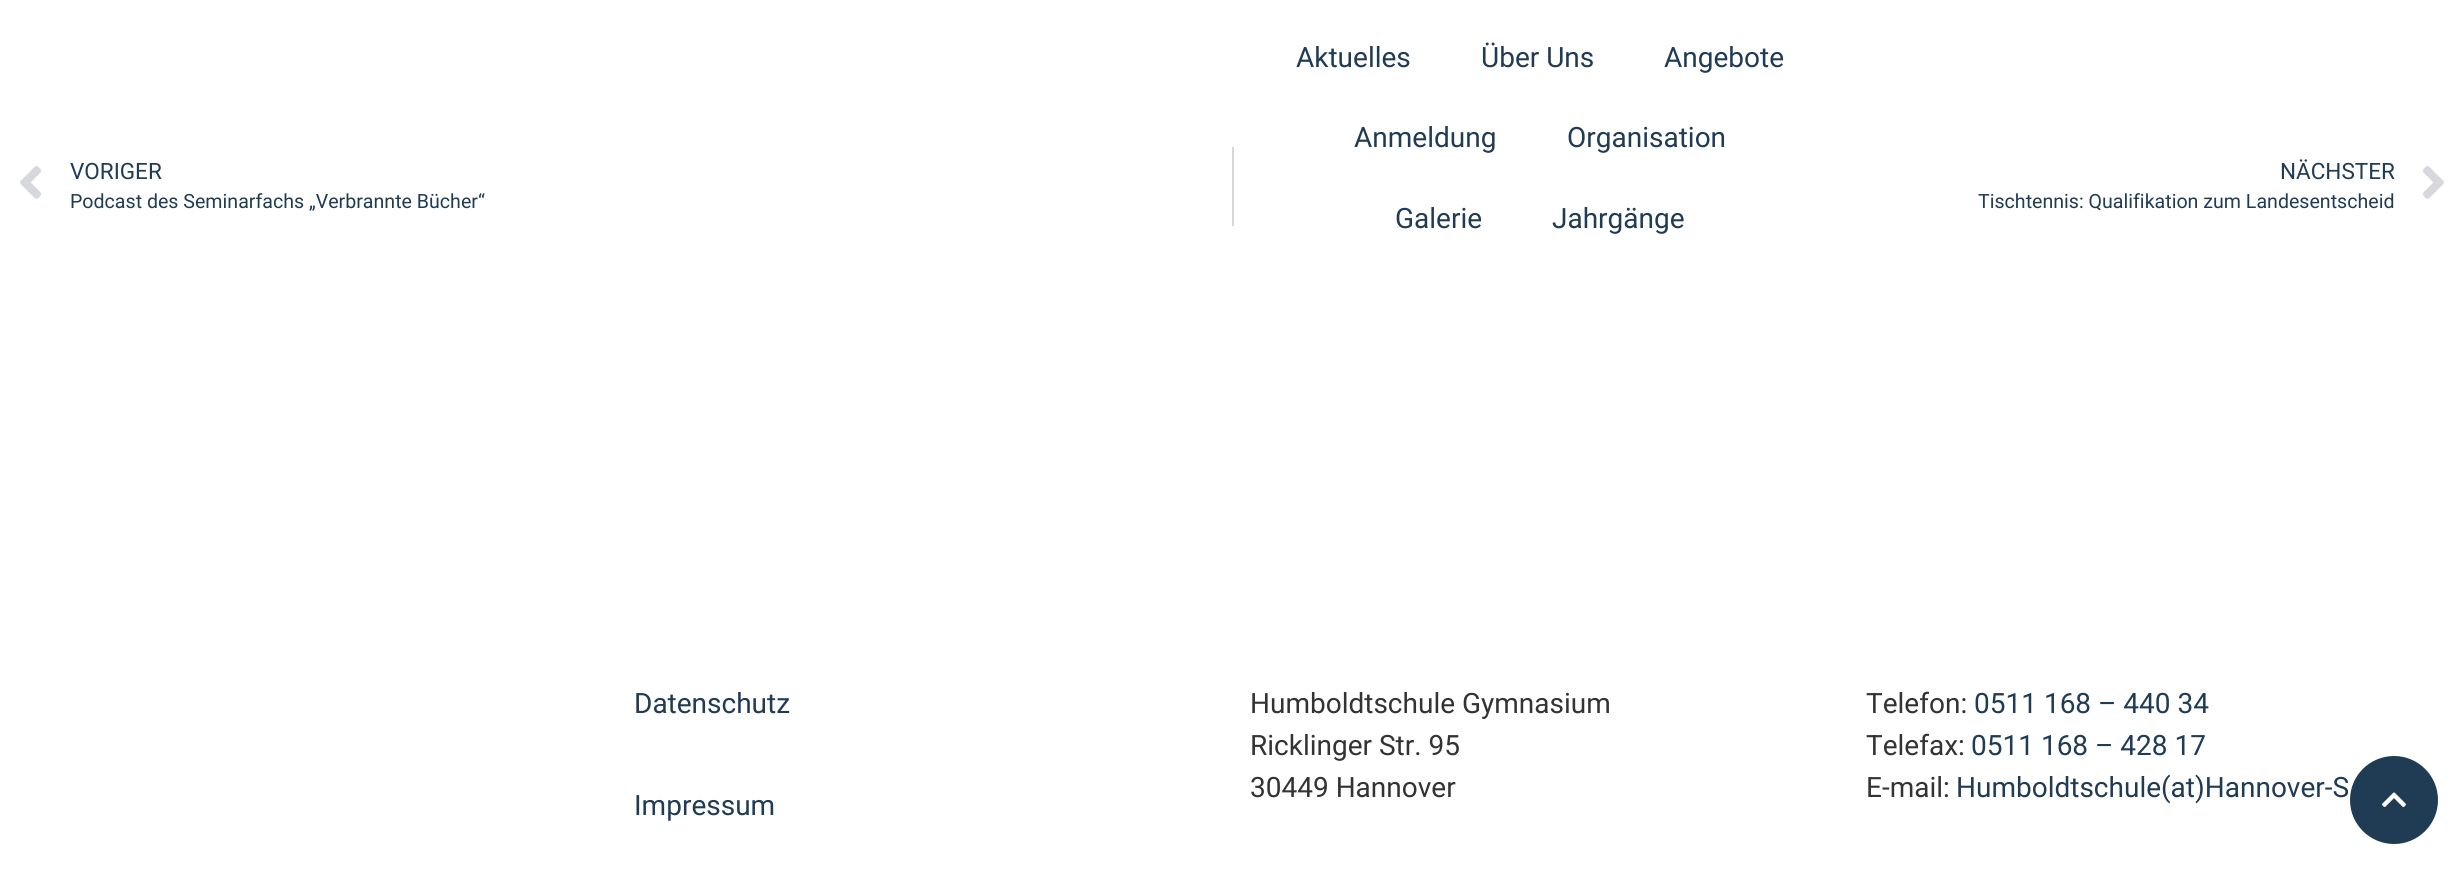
#include <cairo/cairo.h>
#include <math.h>
#include <stddef.h>

static cairo_t *cr;

static void use_color(int r, int g, int b) {
  cairo_set_source_rgb(cr, r / 255.0, g / 255.0, b / 255.0);
}

static void text(double x, double y, const char *s, const char *family, double size, int italic, int bold, int r, int g, int b) {
  cairo_select_font_face(cr, family, italic ? CAIRO_FONT_SLANT_ITALIC : CAIRO_FONT_SLANT_NORMAL,
    bold ? CAIRO_FONT_WEIGHT_BOLD : CAIRO_FONT_WEIGHT_NORMAL);
  cairo_set_font_size(cr, size);
  use_color(r, g, b);
  cairo_move_to(cr, x, y);
  cairo_show_text(cr, s);
}

static void box(double x, double y, double w, double h, int r, int g, int b) {
  use_color(r, g, b);
  cairo_rectangle(cr, x, y, w, h);
  cairo_fill(cr);
}

static void picture(const char *path, double x, double y, double w, double h) {
  cairo_surface_t *image = cairo_image_surface_create_from_png(path);
  cairo_save(cr);
  cairo_set_source_surface(cr, image, x, y);
  cairo_rectangle(cr, x, y, w, h);
  cairo_fill(cr);
  cairo_restore(cr);
  cairo_surface_destroy(image);
}

static void draw(void) {
  use_color(255, 255, 255);
  cairo_paint(cr);
  picture("img_01.png", 20, 166, 22, 33);
  box(1232, 147, 2, 79, 213, 216, 220);
  picture("img_02.png", 2422, 166, 22, 33);
  use_color(32, 59, 84);
  cairo_arc(cr, 2394, 800, 44, 0, 2 * M_PI);
  cairo_fill(cr);
  picture("img_03.png", 2382, 792, 24, 15);
  text(1296, 67, "Aktuelles", "Roboto", 28, 0, 0, 32, 59, 84);
  text(1481, 67, "Über Uns", "Roboto", 28, 0, 0, 32, 59, 84);
  text(1664, 67, "Angebote", "Roboto", 28, 0, 0, 32, 59, 84);
  text(1354, 147, "Anmeldung", "Roboto", 28, 0, 0, 32, 59, 84);
  text(1567, 147, "Organisation", "Roboto", 28, 0, 0, 32, 59, 84);
  text(1395, 228, "Galerie", "Roboto", 28, 0, 0, 32, 59, 84);
  text(1552, 228, "Jahrgänge", "Roboto", 28, 0, 0, 32, 59, 84);
  text(70, 179, "VORIGER", "Roboto", 22.5, 0, 0, 32, 59, 84);
  text(70, 208, "Podcast des Seminarfachs „Verbrannte Bücher“", "Roboto", 19.6, 0, 0, 32, 59, 84);
  text(2280, 179, "NÄCHSTER", "Roboto", 22.5, 0, 0, 32, 59, 84);
  text(1978, 208, "Tischtennis: Qualifikation zum Landesentscheid", "Roboto", 19.6, 0, 0, 32, 59, 84);
  text(634, 713, "Datenschutz", "Roboto", 28, 0, 0, 32, 59, 84);
  text(634, 815, "Impressum", "Roboto", 28, 0, 0, 32, 59, 84);
  text(1250, 713, "Humboldtschule Gymnasium", "Roboto", 28, 0, 0, 51, 51, 51);
  text(1250, 755, "Ricklinger Str. 95", "Roboto", 28, 0, 0, 51, 51, 51);
  text(1250, 797, "30449 Hannover", "Roboto", 28, 0, 0, 51, 51, 51);
  text(1866, 713, "Telefon:", "Roboto", 28, 0, 0, 51, 51, 51);
  text(1974, 713, "0511 168 – 440 34", "Roboto", 28, 0, 0, 32, 59, 84);
  text(1866, 755, "Telefax:", "Roboto", 28, 0, 0, 51, 51, 51);
  text(1971, 755, "0511 168 – 428 17", "Roboto", 28, 0, 0, 32, 59, 84);
  text(1866, 797, "E-mail:", "Roboto", 28, 0, 0, 51, 51, 51);
  text(1956, 797, "Humboldtschule(at)Hannover-S", "Roboto", 28, 0, 0, 32, 59, 84);
}

int main(void) {
  cairo_surface_t *surface = cairo_image_surface_create(CAIRO_FORMAT_RGB24, 2463, 869);
  cr = cairo_create(surface);
  cairo_font_options_t *options = cairo_font_options_create();
  cairo_font_options_set_hint_metrics(options, CAIRO_HINT_METRICS_OFF);
  cairo_font_options_set_hint_style(options, CAIRO_HINT_STYLE_NONE);
  cairo_set_font_options(cr, options);
  cairo_set_miter_limit(cr, 4);
  draw();
  cairo_surface_write_to_png(surface, "out.png");
  cairo_font_options_destroy(options);
  cairo_destroy(cr);
  cairo_surface_destroy(surface);
  return 0;
}
